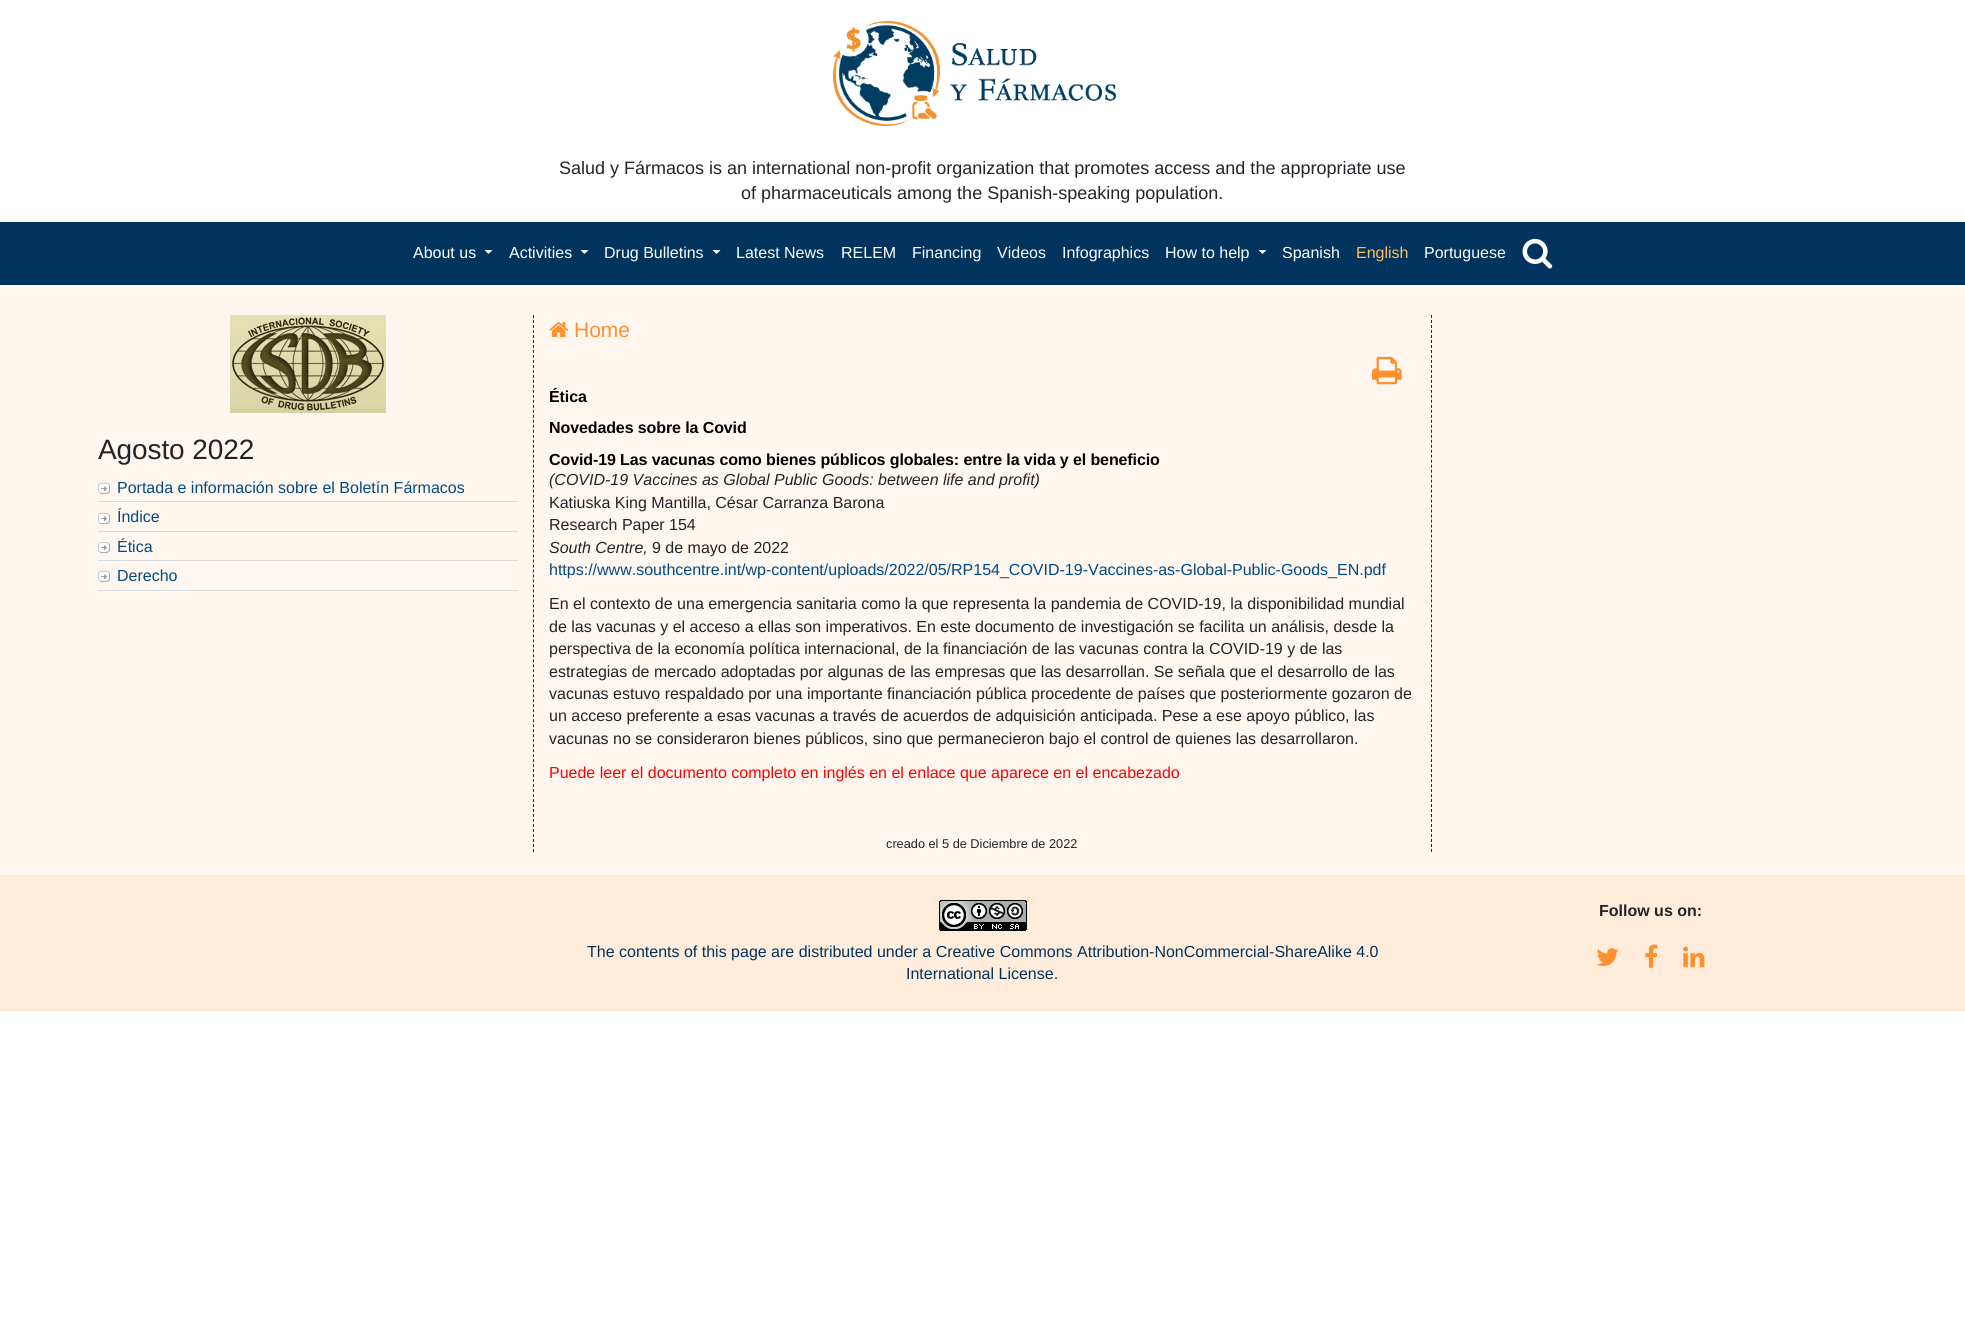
#include <cairo/cairo.h>
#include <math.h>
#include <stddef.h>

static cairo_t *cr;

static void use_color(int r, int g, int b) {
  cairo_set_source_rgb(cr, r / 255.0, g / 255.0, b / 255.0);
}

static void text(double x, double y, const char *s, const char *family, double size, int italic, int bold, int r, int g, int b) {
  cairo_select_font_face(cr, family, italic ? CAIRO_FONT_SLANT_ITALIC : CAIRO_FONT_SLANT_NORMAL,
    bold ? CAIRO_FONT_WEIGHT_BOLD : CAIRO_FONT_WEIGHT_NORMAL);
  cairo_set_font_size(cr, size);
  use_color(r, g, b);
  cairo_move_to(cr, x, y);
  cairo_show_text(cr, s);
}

static void spaced_text(double x, double y, const char *s, double letter, double word) {
  cairo_move_to(cr, x, y);
  while (*s) {
    char ch[5] = {0};
    int n = 0;
    do ch[n++] = *s++; while ((*s & 0xC0) == 0x80);
    cairo_show_text(cr, ch);
    cairo_rel_move_to(cr, letter + word * (*ch == ' '), 0);
  }
}

static void box(double x, double y, double w, double h, int r, int g, int b) {
  use_color(r, g, b);
  cairo_rectangle(cr, x, y, w, h);
  cairo_fill(cr);
}

static void picture(const char *path, double x, double y, double w, double h) {
  cairo_surface_t *image = cairo_image_surface_create_from_png(path);
  cairo_save(cr);
  cairo_set_source_surface(cr, image, x, y);
  cairo_rectangle(cr, x, y, w, h);
  cairo_fill(cr);
  cairo_restore(cr);
  cairo_surface_destroy(image);
}

static void draw(void) {
  use_color(255, 255, 255);
  cairo_paint(cr);
  picture("img_01.png", 833, 21, 283, 105);
  box(0, 222, 1965, 63, 0, 51, 94);
  use_color(255, 255, 255);
  cairo_new_path(cr);
  cairo_move_to(cr, 484.5, 250);
  cairo_line_to(cr, 492.5, 250);
  cairo_line_to(cr, 488.5, 254);
  cairo_close_path(cr);
  cairo_fill(cr);
  cairo_new_path(cr);
  cairo_move_to(cr, 580.5, 250);
  cairo_line_to(cr, 588.5, 250);
  cairo_line_to(cr, 584.5, 254);
  cairo_close_path(cr);
  cairo_fill(cr);
  cairo_new_path(cr);
  cairo_move_to(cr, 712.5, 250);
  cairo_line_to(cr, 720.5, 250);
  cairo_line_to(cr, 716.5, 254);
  cairo_close_path(cr);
  cairo_fill(cr);
  cairo_new_path(cr);
  cairo_move_to(cr, 1258.5, 250);
  cairo_line_to(cr, 1266.5, 250);
  cairo_line_to(cr, 1262.5, 254);
  cairo_close_path(cr);
  cairo_fill(cr);
  picture("img_02.png", 1522, 238, 31, 31);
  box(0, 285, 1965, 590, 255, 247, 239);
  picture("img_03.png", 230, 315, 156, 98);
  picture("img_04.png", 98, 483, 12, 11);
  box(98, 501, 420, 1, 218, 218, 218);
  picture("img_04.png", 98, 513, 12, 11);
  box(98, 531, 420, 1, 218, 218, 218);
  picture("img_04.png", 98, 542, 12, 11);
  box(98, 560, 420, 1, 218, 218, 218);
  picture("img_04.png", 98, 571, 12, 11);
  box(98, 590, 420, 1, 218, 218, 218);
  cairo_new_path(cr);
  cairo_move_to(cr, 1431.5, 315);
  cairo_line_to(cr, 1431.5, 852);
  use_color(0, 51, 94);
  cairo_set_line_width(cr, 1);
  cairo_set_dash(cr, (double[]){3, 1.99}, 2, 0);
  cairo_stroke(cr);
  cairo_new_path(cr);
  cairo_move_to(cr, 533.5, 315);
  cairo_line_to(cr, 533.5, 852);
  cairo_stroke(cr);
  picture("img_05.png", 549, 322, 19, 15);
  picture("img_06.png", 1372, 356, 30, 29);
  box(0, 875, 1965, 136, 255, 236, 218);
  picture("img_07.png", 1596, 948, 23, 18);
  picture("img_08.png", 1645, 944, 13, 24);
  picture("img_09.png", 1683, 946, 22, 22);
  picture("img_10.png", 939, 900, 88, 31);
  text(559, 174, "Salud y Fármacos is an international non-profit organization that promotes access and the appropriate use", "Liberation Sans", 18, 0, 0, 33, 37, 41);
  text(741, 199, "of pharmaceuticals among the Spanish-speaking population.", "Liberation Sans", 18, 0, 0, 33, 37, 41);
  text(413, 258, "About us", "Liberation Sans", 16, 0, 0, 255, 255, 255);
  text(509, 258, "Activities", "Liberation Sans", 16, 0, 0, 255, 255, 255);
  text(604, 258, "Drug Bulletins", "Liberation Sans", 16, 0, 0, 255, 255, 255);
  text(736, 258, "Latest News", "Liberation Sans", 16, 0, 0, 255, 255, 255);
  text(841, 258, "RELEM", "Liberation Sans", 16, 0, 0, 255, 255, 255);
  text(912, 258, "Financing", "Liberation Sans", 16, 0, 0, 255, 255, 255);
  text(997, 258, "Videos", "Liberation Sans", 16, 0, 0, 255, 255, 255);
  text(1062, 258, "Infographics", "Liberation Sans", 16, 0, 0, 255, 255, 255);
  text(1165, 258, "How to help", "Liberation Sans", 16, 0, 0, 255, 255, 255);
  text(1282, 258, "Spanish", "Liberation Sans", 16, 0, 0, 255, 255, 255);
  text(1356, 258, "English", "Liberation Sans", 16, 0, 0, 255, 190, 98);
  text(1424, 258, "Portuguese", "Liberation Sans", 16, 0, 0, 255, 255, 255);
  cairo_set_font_size(cr, 28);
  use_color(33, 37, 41);
  spaced_text(98, 459, "Agosto 2022", -0.1, 0);
  text(117, 493, "Portada e información sobre el Boletín Fármacos", "Liberation Sans", 16, 0, 0, 0, 74, 134);
  text(117, 522, "Índice", "Liberation Sans", 16, 0, 0, 0, 74, 134);
  text(117, 552, "Ética", "Liberation Sans", 16, 0, 0, 0, 74, 134);
  text(117, 581, "Derecho", "Liberation Sans", 16, 0, 0, 0, 74, 134);
  text(574, 337, "Home", "Liberation Sans", 21, 0, 0, 255, 144, 46);
  cairo_select_font_face(cr, "Liberation Sans", CAIRO_FONT_SLANT_NORMAL, CAIRO_FONT_WEIGHT_BOLD);
  cairo_set_font_size(cr, 16);
  use_color(0, 0, 0);
  spaced_text(549, 402, "Ética", -0.1, 0);
  spaced_text(549, 433, "Novedades sobre la Covid", -0.1, 0);
  spaced_text(549, 465, "Covid-19 Las vacunas como bienes públicos globales: entre la vida y el beneficio", -0.1, 0);
  text(549, 485, "(COVID-19 Vaccines as Global Public Goods: between life and profit)", "Liberation Sans", 16, 1, 0, 33, 37, 41);
  text(549, 508, "Katiuska King Mantilla, César Carranza Barona", "Liberation Sans", 16, 0, 0, 33, 37, 41);
  text(549, 530, "Research Paper 154", "Liberation Sans", 16, 0, 0, 33, 37, 41);
  text(549, 553, "South Centre,", "Liberation Sans", 16, 1, 0, 33, 37, 41);
  text(652, 553, "9 de mayo de 2022", "Liberation Sans", 16, 0, 0, 33, 37, 41);
  text(549, 575, "https://www.southcentre.int/wp-content/uploads/2022/05/RP154_COVID-19-Vaccines-as-Global-Public-Goods_EN.pdf", "Liberation Sans", 16, 0, 0, 0, 74, 134);
  text(549, 609, "En el contexto de una emergencia sanitaria como la que representa la pandemia de COVID-19, la disponibilidad mundial", "Liberation Sans", 16, 0, 0, 33, 37, 41);
  text(549, 632, "de las vacunas y el acceso a ellas son imperativos. En este documento de investigación se facilita un análisis, desde la", "Liberation Sans", 16, 0, 0, 33, 37, 41);
  text(549, 654, "perspectiva de la economía política internacional, de la financiación de las vacunas contra la COVID-19 y de las", "Liberation Sans", 16, 0, 0, 33, 37, 41);
  text(549, 677, "estrategias de mercado adoptadas por algunas de las empresas que las desarrollan. Se señala que el desarrollo de las", "Liberation Sans", 16, 0, 0, 33, 37, 41);
  text(549, 699, "vacunas estuvo respaldado por una importante financiación pública procedente de países que posteriormente gozaron de", "Liberation Sans", 16, 0, 0, 33, 37, 41);
  text(549, 721, "un acceso preferente a esas vacunas a través de acuerdos de adquisición anticipada. Pese a ese apoyo público, las", "Liberation Sans", 16, 0, 0, 33, 37, 41);
  text(549, 744, "vacunas no se consideraron bienes públicos, sino que permanecieron bajo el control de quienes las desarrollaron.", "Liberation Sans", 16, 0, 0, 33, 37, 41);
  text(549, 778, "Puede leer el documento completo en inglés en el enlace que aparece en el encabezado", "Liberation Sans", 16, 0, 0, 255, 0, 0);
  text(886, 848, "creado el 5 de Diciembre de 2022", "Liberation Sans", 12.75, 0, 0, 33, 37, 41);
  text(1599, 916, "Follow us on:", "Liberation Sans", 16, 0, 1, 33, 37, 41);
  text(587, 957, "The contents of this page are distributed under a Creative Commons Attribution-NonCommercial-ShareAlike 4.0", "Liberation Sans", 16, 0, 0, 0, 51, 94);
  text(906, 979, "International License.", "Liberation Sans", 16, 0, 0, 0, 51, 94);
}

int main(void) {
  cairo_surface_t *surface = cairo_image_surface_create(CAIRO_FORMAT_RGB24, 1965, 1342);
  cr = cairo_create(surface);
  cairo_font_options_t *options = cairo_font_options_create();
  cairo_font_options_set_hint_metrics(options, CAIRO_HINT_METRICS_OFF);
  cairo_font_options_set_hint_style(options, CAIRO_HINT_STYLE_NONE);
  cairo_set_font_options(cr, options);
  cairo_set_miter_limit(cr, 4);
  draw();
  cairo_surface_write_to_png(surface, "out.png");
  cairo_font_options_destroy(options);
  cairo_destroy(cr);
  cairo_surface_destroy(surface);
  return 0;
}
